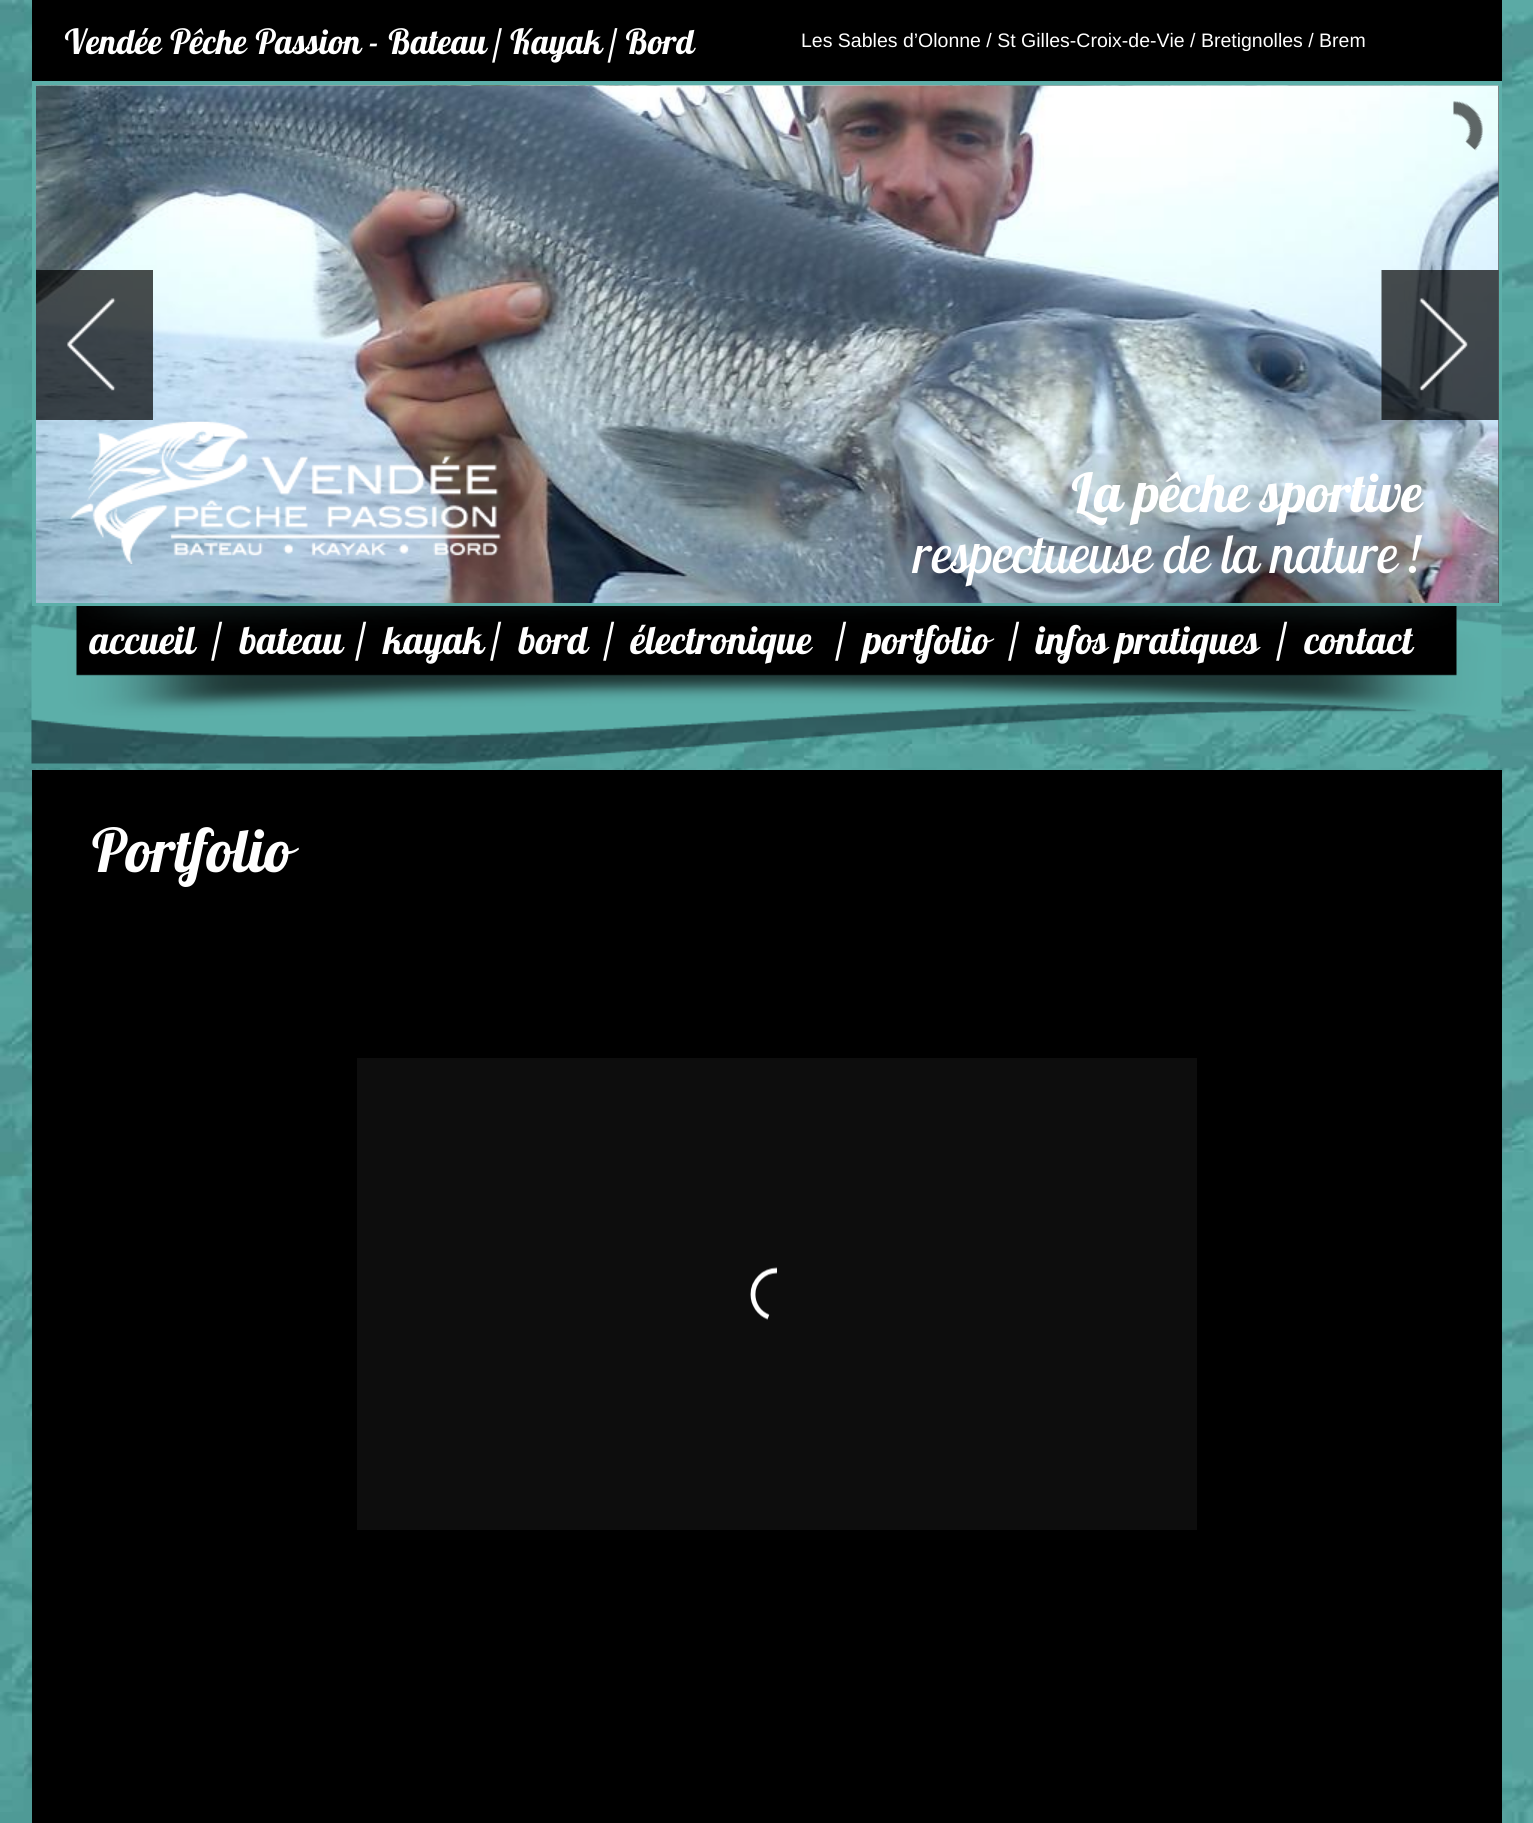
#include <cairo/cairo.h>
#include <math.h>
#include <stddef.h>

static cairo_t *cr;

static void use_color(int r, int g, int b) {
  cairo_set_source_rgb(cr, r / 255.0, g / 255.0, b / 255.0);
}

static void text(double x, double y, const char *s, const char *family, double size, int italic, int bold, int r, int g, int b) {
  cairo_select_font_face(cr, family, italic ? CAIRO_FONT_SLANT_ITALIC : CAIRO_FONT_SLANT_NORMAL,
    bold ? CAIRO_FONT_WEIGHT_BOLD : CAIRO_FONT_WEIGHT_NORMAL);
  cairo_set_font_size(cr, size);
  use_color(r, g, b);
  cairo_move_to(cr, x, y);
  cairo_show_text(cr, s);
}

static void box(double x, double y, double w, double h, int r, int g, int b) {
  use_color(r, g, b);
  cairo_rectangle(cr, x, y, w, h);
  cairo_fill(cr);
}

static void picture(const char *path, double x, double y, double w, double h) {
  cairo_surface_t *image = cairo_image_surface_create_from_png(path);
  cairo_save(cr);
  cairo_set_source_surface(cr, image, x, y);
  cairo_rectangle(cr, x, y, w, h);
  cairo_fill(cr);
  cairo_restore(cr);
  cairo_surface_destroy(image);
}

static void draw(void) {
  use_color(255, 255, 255);
  cairo_paint(cr);
  picture("img_01.png", 0, 0, 1533, 1823);
  box(32, 0, 1470, 81, 0, 0, 0);
  box(32, 81, 1470, 525, 92, 175, 169);
  box(1498, 86, 1, 517, 0, 0, 0);
  picture("img_02.png", 36, 85, 1463, 518);
  picture("img_03.png", 36, 85, 1463, 518);
  picture("img_04.png", 36, 85, 1463, 518);
  picture("img_05.png", 36, 85, 1463, 518);
  picture("img_06.png", 1453, 101, 30, 50);
  picture("img_07.png", 36, 270, 117, 150);
  picture("img_08.png", 1381, 270, 118, 150);
  picture("img_09.png", 70, 421, 431, 143);
  picture("img_10.png", 31, 606, 1471, 158);
  box(32, 770, 1470, 1053, 0, 0, 0);
  picture("img_11.png", 357, 1058, 840, 472);
  text(63, 54, "Vendée Pêche Passion - Bateau / Kayak / Bord", "Lobster Two", 34.5, 1, 1, 255, 255, 255);
  text(801, 47, "Les Sables d’Olonne / St Gilles-Croix-de-Vie / Bretignolles / Brem", "Liberation Sans", 19.5, 0, 0, 255, 255, 255);
  text(1069, 512, "La pêche sportive", "Lobster Two", 54, 1, 1, 255, 255, 255);
  text(913, 573, "respectueuse de la nature !", "Lobster Two", 54, 1, 0, 255, 255, 255);
  text(89, 654, "accueil", "Lobster Two", 39, 1, 1, 255, 255, 255);
  text(213, 651, "/", "Lobster Two", 39, 1, 1, 255, 255, 255);
  text(239, 654, "bateau", "Lobster Two", 39, 1, 1, 255, 255, 255);
  text(357, 651, "/", "Lobster Two", 39, 1, 1, 255, 255, 255);
  text(383, 654, "kayak", "Lobster Two", 39, 1, 1, 255, 255, 255);
  text(492, 651, "/", "Lobster Two", 39, 1, 1, 255, 255, 255);
  text(518, 654, "bord", "Lobster Two", 39, 1, 1, 255, 255, 255);
  text(605, 651, "/", "Lobster Two", 39, 1, 1, 255, 255, 255);
  text(630, 654, "électronique", "Lobster Two", 39, 1, 1, 255, 255, 255);
  text(837, 651, "/", "Lobster Two", 39, 1, 1, 255, 255, 255);
  text(863, 654, "portfolio", "Lobster Two", 39, 1, 1, 255, 255, 255);
  text(1010, 651, "/", "Lobster Two", 39, 1, 1, 255, 255, 255);
  text(1035, 654, "infos pratiques", "Lobster Two", 39, 1, 1, 255, 255, 255);
  text(1278, 651, "/", "Lobster Two", 39, 1, 1, 255, 255, 255);
  text(1304, 654, "contact", "Lobster Two", 39, 1, 1, 255, 255, 255);
  text(89, 872, "Portfolio", "Lobster Two", 60, 1, 1, 255, 255, 255);
}

int main(void) {
  cairo_surface_t *surface = cairo_image_surface_create(CAIRO_FORMAT_RGB24, 1533, 1823);
  cr = cairo_create(surface);
  cairo_font_options_t *options = cairo_font_options_create();
  cairo_font_options_set_hint_metrics(options, CAIRO_HINT_METRICS_OFF);
  cairo_font_options_set_hint_style(options, CAIRO_HINT_STYLE_NONE);
  cairo_set_font_options(cr, options);
  cairo_set_miter_limit(cr, 4);
  draw();
  cairo_surface_write_to_png(surface, "out.png");
  cairo_font_options_destroy(options);
  cairo_destroy(cr);
  cairo_surface_destroy(surface);
  return 0;
}
